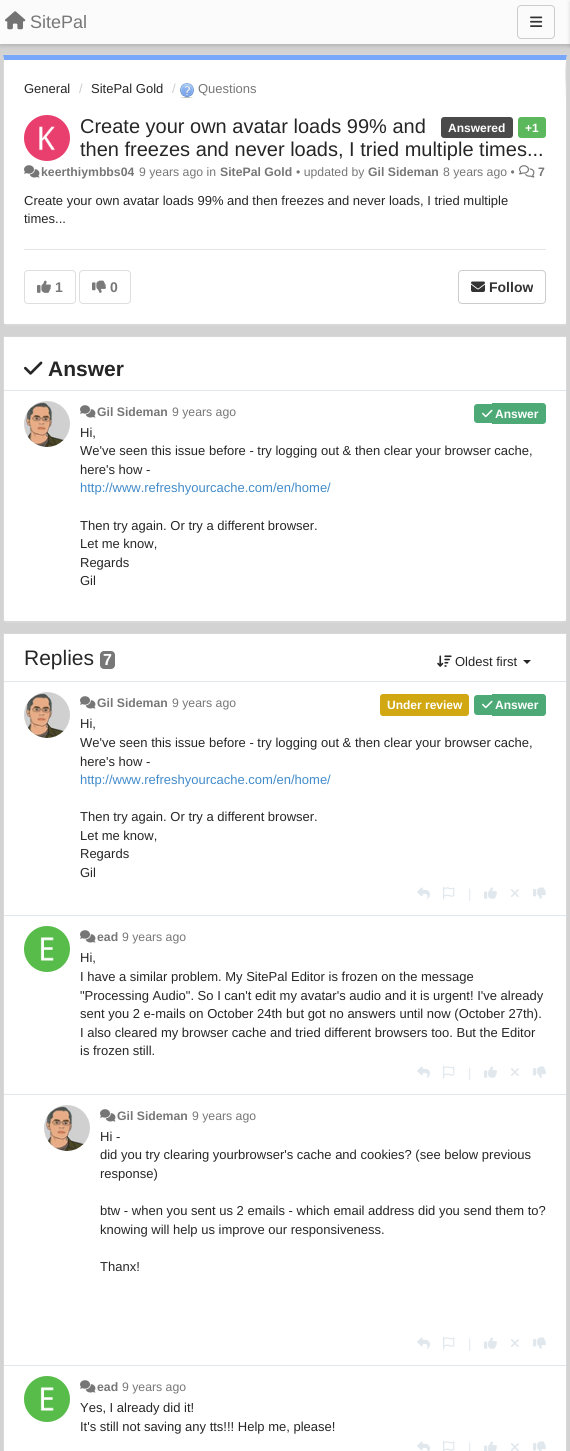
#include <cairo/cairo.h>
#include <math.h>
#include <stddef.h>

static cairo_t *cr;

static void use_color(int r, int g, int b) {
  cairo_set_source_rgb(cr, r / 255.0, g / 255.0, b / 255.0);
}

static void text(double x, double y, const char *s, const char *family, double size, int italic, int bold, int r, int g, int b) {
  cairo_select_font_face(cr, family, italic ? CAIRO_FONT_SLANT_ITALIC : CAIRO_FONT_SLANT_NORMAL,
    bold ? CAIRO_FONT_WEIGHT_BOLD : CAIRO_FONT_WEIGHT_NORMAL);
  cairo_set_font_size(cr, size);
  use_color(r, g, b);
  cairo_move_to(cr, x, y);
  cairo_show_text(cr, s);
}

static void box(double x, double y, double w, double h, int r, int g, int b) {
  use_color(r, g, b);
  cairo_rectangle(cr, x, y, w, h);
  cairo_fill(cr);
}

static void round_rect(double x, double y, double w, double h, double r) {
  cairo_new_sub_path(cr);
  cairo_arc(cr, x + w - r, y + h - r, r, 0, M_PI / 2);
  cairo_arc(cr, x + r, y + h - r, r, M_PI / 2, M_PI);
  cairo_arc(cr, x + r, y + r, r, M_PI, 1.5 * M_PI);
  cairo_arc(cr, x + w - r, y + r, r, 1.5 * M_PI, 2 * M_PI);
  cairo_close_path(cr);
}

static void shadow(double x, double y, double w, double h, double r, double blur, double alpha) {
  cairo_push_group_with_content(cr, CAIRO_CONTENT_ALPHA);
  cairo_set_operator(cr, CAIRO_OPERATOR_SOURCE);
  for (int i = 15; i >= -15 && fmin(w, h) + blur * i / 3 > 0; i -= 2) {
    double e = blur * i / 6;
    cairo_set_source_rgba(cr, 0, 0, 0, alpha * erfc((i - 1) / 8.5) / 2);
    round_rect(x - e, y - e, w + 2 * e, h + 2 * e, fmax(0, fmin(r + e + blur * .6, fmin(w, h) / 2 + e)));
    cairo_fill(cr);
  }
  cairo_pattern_t *soft = cairo_pop_group(cr);
  cairo_mask(cr, soft);
  cairo_pattern_destroy(soft);
}

static void picture(const char *path, double x, double y, double w, double h) {
  cairo_surface_t *image = cairo_image_surface_create_from_png(path);
  cairo_save(cr);
  cairo_set_source_surface(cr, image, x, y);
  cairo_rectangle(cr, x, y, w, h);
  cairo_fill(cr);
  cairo_restore(cr);
  cairo_surface_destroy(image);
}

static void draw(void) {
  use_color(211, 211, 211);
  cairo_paint(cr);
  use_color(0, 0, 0);
  shadow(0, 2, 570, 44, 0, 2, 0.15);
  box(0, 0, 570, 44, 251, 251, 251);
  picture("img_01.png", 5, 11, 21, 19);
  round_rect(517.5, 5.5, 37, 33, 3.5);
  use_color(204, 204, 204);
  cairo_set_line_width(cr, 1);
  cairo_stroke(cr);
  picture("img_02.png", 530, 16, 13, 11);
  use_color(0, 0, 0);
  shadow(570, 2, 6, 44, 0, 2, 0.15);
  box(3, 54, 564, 1, 216, 216, 216);
  use_color(255, 255, 255);
  cairo_new_path(cr);
  cairo_move_to(cr, 4, 60);
  cairo_line_to(cr, 566, 60);
  cairo_line_to(cr, 566, 323);
  cairo_curve_to(cr, 566, 324, 565, 324, 564, 324);
  cairo_line_to(cr, 6, 324);
  cairo_curve_to(cr, 5, 324, 4, 324, 4, 323);
  cairo_close_path(cr);
  cairo_fill(cr);
  use_color(118, 167, 250);
  cairo_new_path(cr);
  cairo_move_to(cr, 3, 55);
  cairo_line_to(cr, 4, 60);
  cairo_line_to(cr, 566, 60);
  cairo_line_to(cr, 567, 55);
  cairo_close_path(cr);
  cairo_fill(cr);
  use_color(216, 216, 216);
  cairo_new_path(cr);
  cairo_move_to(cr, 567, 55);
  cairo_curve_to(cr, 564, 72, 566, 77, 566, 104);
  cairo_line_to(cr, 566, 324);
  cairo_line_to(cr, 566, 325);
  cairo_line_to(cr, 567, 323);
  cairo_close_path(cr);
  cairo_fill(cr);
  cairo_new_path(cr);
  cairo_move_to(cr, 6, 326);
  cairo_line_to(cr, 564, 326);
  cairo_line_to(cr, 566, 325);
  cairo_line_to(cr, 566, 324);
  cairo_line_to(cr, 564, 324);
  cairo_line_to(cr, 6, 324);
  cairo_line_to(cr, 4, 324);
  cairo_line_to(cr, 4, 325);
  cairo_close_path(cr);
  cairo_fill(cr);
  cairo_new_path(cr);
  cairo_move_to(cr, 4, 60);
  cairo_line_to(cr, 3, 55);
  cairo_line_to(cr, 3, 323);
  cairo_line_to(cr, 4, 325);
  cairo_line_to(cr, 4, 323);
  cairo_close_path(cr);
  cairo_fill(cr);
  picture("img_03.png", 180, 83, 14, 15);
  use_color(232, 63, 110);
  cairo_arc(cr, 47, 138, 23, 0, 2 * M_PI);
  cairo_fill(cr);
  picture("img_04.png", 39, 126, 16, 25);
  use_color(74, 74, 74);
  round_rect(441, 117, 72, 21, 3);
  cairo_fill(cr);
  use_color(92, 184, 92);
  round_rect(518, 117, 28, 21, 3);
  cairo_fill(cr);
  picture("img_05.png", 24, 165, 16, 13);
  picture("img_06.png", 519, 165, 16, 13);
  box(24, 249, 522, 1, 229, 229, 229);
  round_rect(24.5, 270.5, 51, 33, 3.5);
  use_color(222, 222, 222);
  cairo_stroke(cr);
  picture("img_07.png", 37, 280, 14, 13);
  round_rect(79.5, 270.5, 51, 33, 3.5);
  cairo_stroke(cr);
  picture("img_08.png", 92, 280, 14, 13);
  round_rect(458.5, 270.5, 87, 33, 3.5);
  use_color(204, 204, 204);
  cairo_stroke(cr);
  picture("img_09.png", 471, 281, 14, 11);
  use_color(255, 255, 255);
  cairo_new_path(cr);
  cairo_move_to(cr, 4, 337);
  cairo_line_to(cr, 566, 337);
  cairo_line_to(cr, 566, 620);
  cairo_curve_to(cr, 566, 621, 565, 621, 564, 621);
  cairo_line_to(cr, 6, 621);
  cairo_curve_to(cr, 5, 621, 4, 621, 4, 620);
  cairo_close_path(cr);
  cairo_fill(cr);
  cairo_new_path(cr);
  cairo_move_to(cr, 3.5, 336.5);
  cairo_line_to(cr, 566.5, 336.5);
  cairo_line_to(cr, 566.5, 620);
  cairo_curve_to(cr, 566.5, 621.5, 565.5, 622.5, 564, 622.5);
  cairo_line_to(cr, 6, 622.5);
  cairo_curve_to(cr, 4.5, 622.5, 3.5, 621.5, 3.5, 620);
  cairo_close_path(cr);
  use_color(216, 216, 216);
  cairo_stroke(cr);
  box(5, 621, 561, 1, 216, 216, 216);
  picture("img_10.png", 24, 361, 19, 14);
  box(4, 390, 562, 1, 225, 232, 237);
  picture("img_11.png", 24, 401, 46, 46);
  picture("img_05.png", 80, 405, 16, 13);
  use_color(77, 170, 119);
  cairo_new_path(cr);
  cairo_move_to(cr, 477, 404);
  cairo_line_to(cr, 492, 404);
  cairo_line_to(cr, 492, 423);
  cairo_line_to(cr, 477, 423);
  cairo_curve_to(cr, 475.5, 423, 474, 421.5, 474, 420);
  cairo_line_to(cr, 474, 407);
  cairo_curve_to(cr, 474, 405.5, 475.5, 404, 477, 404);
  cairo_close_path(cr);
  cairo_fill(cr);
  cairo_new_path(cr);
  cairo_move_to(cr, 492, 403);
  cairo_line_to(cr, 543, 403);
  cairo_curve_to(cr, 544.5, 403, 546, 404.5, 546, 406);
  cairo_line_to(cr, 546, 421);
  cairo_curve_to(cr, 546, 422.5, 544.5, 424, 543, 424);
  cairo_line_to(cr, 492, 424);
  cairo_close_path(cr);
  cairo_fill(cr);
  picture("img_12.png", 482, 409, 11, 9);
  box(3, 633, 564, 1, 216, 216, 216);
  box(4, 634, 562, 817, 255, 255, 255);
  use_color(216, 216, 216);
  cairo_set_fill_rule(cr, CAIRO_FILL_RULE_EVEN_ODD);
  cairo_new_path(cr);
  cairo_move_to(cr, 3, 634);
  cairo_line_to(cr, 567, 634);
  cairo_line_to(cr, 567, 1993);
  cairo_curve_to(cr, 567, 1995, 566, 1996, 564, 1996);
  cairo_line_to(cr, 6, 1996);
  cairo_curve_to(cr, 4, 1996, 3, 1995, 3, 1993);
  cairo_close_path(cr);
  cairo_move_to(cr, 4, 634);
  cairo_line_to(cr, 566, 634);
  cairo_line_to(cr, 566, 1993);
  cairo_curve_to(cr, 566, 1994, 565, 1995, 564, 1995);
  cairo_line_to(cr, 6, 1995);
  cairo_curve_to(cr, 5, 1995, 4, 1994, 4, 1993);
  cairo_close_path(cr);
  cairo_fill(cr);
  use_color(119, 119, 119);
  round_rect(100, 651, 15, 18, 4);
  cairo_fill(cr);
  picture("img_13.png", 437, 655, 15, 12);
  use_color(38, 38, 38);
  cairo_set_fill_rule(cr, CAIRO_FILL_RULE_WINDING);
  cairo_new_path(cr);
  cairo_move_to(cr, 523, 660);
  cairo_line_to(cr, 531, 660);
  cairo_line_to(cr, 527, 664);
  cairo_close_path(cr);
  cairo_fill(cr);
  box(4, 681, 562, 1, 225, 232, 237);
  box(4, 915, 562, 1, 225, 232, 237);
  picture("img_11.png", 24, 692, 46, 46);
  picture("img_05.png", 80, 696, 16, 13);
  use_color(209, 167, 18);
  round_rect(380, 694, 89, 22, 3);
  cairo_fill(cr);
  use_color(77, 170, 119);
  cairo_new_path(cr);
  cairo_move_to(cr, 477, 695);
  cairo_line_to(cr, 492, 695);
  cairo_line_to(cr, 492, 715);
  cairo_line_to(cr, 477, 715);
  cairo_curve_to(cr, 475.5, 715, 474, 713.5, 474, 712);
  cairo_line_to(cr, 474, 698);
  cairo_curve_to(cr, 474, 696.5, 475.5, 695, 477, 695);
  cairo_close_path(cr);
  cairo_fill(cr);
  cairo_new_path(cr);
  cairo_move_to(cr, 492, 694);
  cairo_line_to(cr, 543, 694);
  cairo_curve_to(cr, 544.5, 694, 546, 695.5, 546, 697);
  cairo_line_to(cr, 546, 713);
  cairo_curve_to(cr, 546, 714.5, 544.5, 716, 543, 716);
  cairo_line_to(cr, 492, 716);
  cairo_close_path(cr);
  cairo_fill(cr);
  picture("img_12.png", 482, 700, 11, 9);
  picture("img_14.png", 417, 887, 13, 12);
  picture("img_15.png", 443, 886, 12, 14);
  picture("img_16.png", 484, 887, 13, 12);
  picture("img_17.png", 511, 889, 8, 8);
  picture("img_18.png", 533, 887, 13, 12);
  box(4, 1094, 562, 1, 225, 232, 237);
  use_color(88, 188, 74);
  cairo_arc(cr, 47, 949, 23, 0, 2 * M_PI);
  cairo_fill(cr);
  picture("img_19.png", 40, 937, 14, 24);
  picture("img_05.png", 80, 930, 16, 13);
  picture("img_14.png", 417, 1066, 13, 12);
  picture("img_15.png", 443, 1065, 12, 14);
  picture("img_16.png", 484, 1066, 13, 12);
  picture("img_17.png", 511, 1068, 8, 8);
  picture("img_18.png", 533, 1066, 13, 12);
  box(4, 1365, 562, 1, 225, 232, 237);
  picture("img_20.png", 44, 1105, 46, 46);
  picture("img_05.png", 100, 1109, 16, 13);
  picture("img_14.png", 417, 1337, 13, 12);
  picture("img_15.png", 443, 1336, 12, 14);
  picture("img_16.png", 484, 1337, 13, 12);
  picture("img_17.png", 511, 1339, 8, 8);
  picture("img_18.png", 533, 1337, 13, 12);
  use_color(88, 188, 74);
  cairo_arc(cr, 47, 1399, 23, 0, 2 * M_PI);
  cairo_fill(cr);
  picture("img_19.png", 40, 1387, 14, 24);
  picture("img_05.png", 80, 1380, 16, 13);
  picture("img_21.png", 417, 1441, 13, 10);
  picture("img_22.png", 443, 1440, 12, 11);
  picture("img_23.png", 484, 1441, 13, 10);
  picture("img_17.png", 511, 1443, 8, 8);
  picture("img_24.png", 533, 1441, 13, 10);
  text(30, 28, "SitePal", "Liberation Sans", 18, 0, 0, 119, 119, 119);
  text(24, 93, "General", "Liberation Sans", 13, 0, 0, 38, 38, 38);
  text(79, 93, "/", "Liberation Sans", 13, 0, 0, 204, 204, 204);
  text(91, 93, "SitePal Gold", "Liberation Sans", 13, 0, 0, 38, 38, 38);
  text(172, 93, "/", "Liberation Sans", 13, 0, 0, 204, 204, 204);
  text(198, 93, "Questions", "Liberation Sans", 13, 0, 0, 119, 119, 119);
  text(80, 133, "Create your own avatar loads 99% and", "Liberation Sans", 20, 0, 0, 38, 38, 38);
  text(80, 156, "then freezes and never loads, I tried multiple times...", "Liberation Sans", 20, 0, 0, 38, 38, 38);
  text(448, 132, "Answered", "Liberation Sans", 12, 0, 1, 255, 255, 255);
  text(525, 132, "+1", "Liberation Sans", 12, 0, 1, 255, 255, 255);
  text(41, 176, "keerthiymbbs04", "Liberation Sans", 12.25, 0, 1, 119, 119, 119);
  text(139, 176, "9 years ago in", "Liberation Sans", 12.25, 0, 0, 119, 119, 119);
  text(220, 176, "SitePal Gold", "Liberation Sans", 12.25, 0, 1, 119, 119, 119);
  text(296, 176, "• updated by", "Liberation Sans", 12.25, 0, 0, 119, 119, 119);
  text(368, 176, "Gil Sideman", "Liberation Sans", 12.25, 0, 1, 119, 119, 119);
  text(443, 176, "8 years ago •", "Liberation Sans", 12.25, 0, 0, 119, 119, 119);
  text(538, 176, "7", "Liberation Sans", 12.25, 0, 1, 119, 119, 119);
  text(24, 205, "Create your own avatar loads 99% and then freezes and never loads, I tried multiple", "Liberation Sans", 13, 0, 0, 38, 38, 38);
  text(24, 223, "times...", "Liberation Sans", 13, 0, 0, 38, 38, 38);
  text(55, 292, "1", "Liberation Sans", 14, 0, 1, 119, 119, 119);
  text(110, 292, "0", "Liberation Sans", 14, 0, 1, 119, 119, 119);
  text(489, 292, "Follow", "Liberation Sans", 14, 0, 1, 51, 51, 51);
  text(48, 376, "Answer", "Liberation Sans", 21, 0, 1, 38, 38, 38);
  text(97, 416, "Gil Sideman", "Liberation Sans", 12.25, 0, 1, 119, 119, 119);
  text(172, 416, "9 years ago", "Liberation Sans", 12.25, 0, 0, 119, 119, 119);
  text(495, 418, "Answer", "Liberation Sans", 12, 0, 1, 255, 255, 255);
  text(80, 437, "Hi,", "Liberation Sans", 13, 0, 0, 38, 38, 38);
  text(80, 455, "We've seen this issue before - try logging out & then clear your browser cache,", "Liberation Sans", 13, 0, 0, 38, 38, 38);
  text(80, 474, "here's how -", "Liberation Sans", 13, 0, 0, 38, 38, 38);
  text(80, 492, "http://www.refreshyourcache.com/en/home/", "Liberation Sans", 13, 0, 0, 66, 139, 202);
  text(80, 530, "Then try again. Or try a different browser.", "Liberation Sans", 13, 0, 0, 38, 38, 38);
  text(80, 548, "Let me know,", "Liberation Sans", 13, 0, 0, 38, 38, 38);
  text(80, 567, "Regards", "Liberation Sans", 13, 0, 0, 38, 38, 38);
  text(80, 585, "Gil", "Liberation Sans", 13, 0, 0, 38, 38, 38);
  text(24, 665, "Replies", "Liberation Sans", 21, 0, 0, 38, 38, 38);
  text(103, 665, "7", "Liberation Sans", 16, 0, 1, 255, 255, 255);
  text(455, 666, "Oldest first", "Liberation Sans", 13, 0, 0, 38, 38, 38);
  text(97, 707, "Gil Sideman", "Liberation Sans", 12.25, 0, 1, 119, 119, 119);
  text(172, 707, "9 years ago", "Liberation Sans", 12.25, 0, 0, 119, 119, 119);
  text(387, 709, "Under review", "Liberation Sans", 12, 0, 1, 255, 255, 255);
  text(495, 709, "Answer", "Liberation Sans", 12, 0, 1, 255, 255, 255);
  text(80, 728, "Hi,", "Liberation Sans", 13, 0, 0, 38, 38, 38);
  text(80, 747, "We've seen this issue before - try logging out & then clear your browser cache,", "Liberation Sans", 13, 0, 0, 38, 38, 38);
  text(80, 766, "here's how -", "Liberation Sans", 13, 0, 0, 38, 38, 38);
  text(80, 784, "http://www.refreshyourcache.com/en/home/", "Liberation Sans", 13, 0, 0, 66, 139, 202);
  text(80, 821, "Then try again. Or try a different browser.", "Liberation Sans", 13, 0, 0, 38, 38, 38);
  text(80, 840, "Let me know,", "Liberation Sans", 13, 0, 0, 38, 38, 38);
  text(80, 858, "Regards", "Liberation Sans", 13, 0, 0, 38, 38, 38);
  text(80, 877, "Gil", "Liberation Sans", 13, 0, 0, 38, 38, 38);
  text(468, 898, "|", "Liberation Sans", 13, 0, 0, 225, 232, 237);
  text(97, 941, "ead", "Liberation Sans", 12.25, 0, 1, 119, 119, 119);
  text(122, 941, "9 years ago", "Liberation Sans", 12.25, 0, 0, 119, 119, 119);
  text(80, 962, "Hi,", "Liberation Sans", 13, 0, 0, 38, 38, 38);
  text(80, 981, "I have a similar problem. My SitePal Editor is frozen on the message", "Liberation Sans", 13, 0, 0, 38, 38, 38);
  text(80, 1000, "\"Processing Audio\". So I can't edit my avatar's audio and it is urgent! I've already", "Liberation Sans", 13, 0, 0, 38, 38, 38);
  text(80, 1018, "sent you 2 e-mails on October 24th but got no answers until now (October 27th).", "Liberation Sans", 13, 0, 0, 38, 38, 38);
  text(80, 1037, "I also cleared my browser cache and tried different browsers too. But the Editor", "Liberation Sans", 13, 0, 0, 38, 38, 38);
  text(80, 1055, "is frozen still.", "Liberation Sans", 13, 0, 0, 38, 38, 38);
  text(468, 1077, "|", "Liberation Sans", 13, 0, 0, 225, 232, 237);
  text(117, 1120, "Gil Sideman", "Liberation Sans", 12.25, 0, 1, 119, 119, 119);
  text(192, 1120, "9 years ago", "Liberation Sans", 12.25, 0, 0, 119, 119, 119);
  text(100, 1141, "Hi -", "Liberation Sans", 13, 0, 0, 38, 38, 38);
  text(100, 1159, "did you try clearing yourbrowser's cache and cookies? (see below previous", "Liberation Sans", 13, 0, 0, 38, 38, 38);
  text(100, 1178, "response)", "Liberation Sans", 13, 0, 0, 38, 38, 38);
  text(100, 1215, "btw - when you sent us 2 emails - which email address did you send them to?", "Liberation Sans", 13, 0, 0, 38, 38, 38);
  text(100, 1234, "knowing will help us improve our responsiveness.", "Liberation Sans", 13, 0, 0, 38, 38, 38);
  text(100, 1271, "Thanx!", "Liberation Sans", 13, 0, 0, 38, 38, 38);
  text(468, 1348, "|", "Liberation Sans", 13, 0, 0, 225, 232, 237);
  text(97, 1391, "ead", "Liberation Sans", 12.25, 0, 1, 119, 119, 119);
  text(122, 1391, "9 years ago", "Liberation Sans", 12.25, 0, 0, 119, 119, 119);
  text(80, 1412, "Yes, I already did it!", "Liberation Sans", 13, 0, 0, 38, 38, 38);
  text(80, 1431, "It's still not saving any tts!!! Help me, please!", "Liberation Sans", 13, 0, 0, 38, 38, 38);
  text(468, 1452, "|", "Liberation Sans", 13, 0, 0, 225, 232, 237);
}

int main(void) {
  cairo_surface_t *surface = cairo_image_surface_create(CAIRO_FORMAT_RGB24, 570, 1451);
  cr = cairo_create(surface);
  cairo_font_options_t *options = cairo_font_options_create();
  cairo_font_options_set_hint_metrics(options, CAIRO_HINT_METRICS_OFF);
  cairo_font_options_set_hint_style(options, CAIRO_HINT_STYLE_NONE);
  cairo_set_font_options(cr, options);
  cairo_set_miter_limit(cr, 4);
  draw();
  cairo_surface_write_to_png(surface, "out.png");
  cairo_font_options_destroy(options);
  cairo_destroy(cr);
  cairo_surface_destroy(surface);
  return 0;
}
